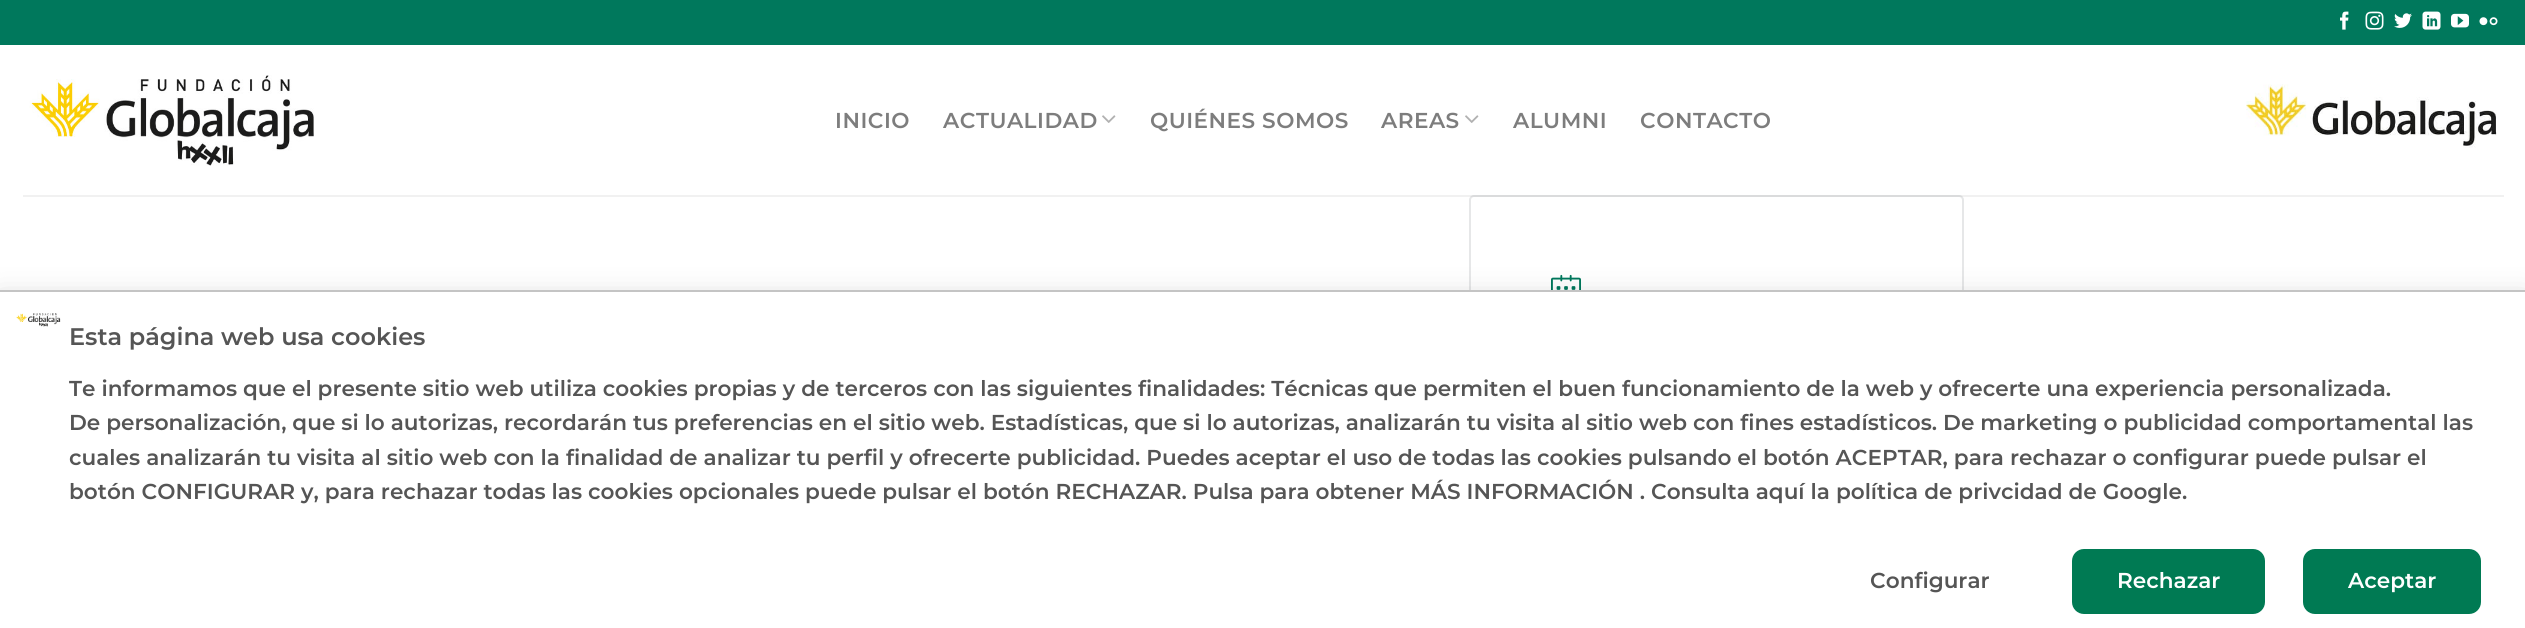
#include <cairo/cairo.h>
#include <math.h>
#include <stddef.h>

static cairo_t *cr;

static void use_color(int r, int g, int b) {
  cairo_set_source_rgb(cr, r / 255.0, g / 255.0, b / 255.0);
}

static void text(double x, double y, const char *s, const char *family, double size, int italic, int bold, int r, int g, int b) {
  cairo_select_font_face(cr, family, italic ? CAIRO_FONT_SLANT_ITALIC : CAIRO_FONT_SLANT_NORMAL,
    bold ? CAIRO_FONT_WEIGHT_BOLD : CAIRO_FONT_WEIGHT_NORMAL);
  cairo_set_font_size(cr, size);
  use_color(r, g, b);
  cairo_move_to(cr, x, y);
  cairo_show_text(cr, s);
}

static void spaced_text(double x, double y, const char *s, double letter, double word) {
  cairo_move_to(cr, x, y);
  while (*s) {
    char ch[5] = {0};
    int n = 0;
    do ch[n++] = *s++; while ((*s & 0xC0) == 0x80);
    cairo_show_text(cr, ch);
    cairo_rel_move_to(cr, letter + word * (*ch == ' '), 0);
  }
}

static void box(double x, double y, double w, double h, int r, int g, int b) {
  use_color(r, g, b);
  cairo_rectangle(cr, x, y, w, h);
  cairo_fill(cr);
}

static void round_rect(double x, double y, double w, double h, double r) {
  cairo_new_sub_path(cr);
  cairo_arc(cr, x + w - r, y + h - r, r, 0, M_PI / 2);
  cairo_arc(cr, x + r, y + h - r, r, M_PI / 2, M_PI);
  cairo_arc(cr, x + r, y + r, r, M_PI, 1.5 * M_PI);
  cairo_arc(cr, x + w - r, y + r, r, 1.5 * M_PI, 2 * M_PI);
  cairo_close_path(cr);
}

static void shadow(double x, double y, double w, double h, double r, double blur, double alpha) {
  cairo_push_group_with_content(cr, CAIRO_CONTENT_ALPHA);
  cairo_set_operator(cr, CAIRO_OPERATOR_SOURCE);
  for (int i = 15; i >= -15 && fmin(w, h) + blur * i / 3 > 0; i -= 2) {
    double e = blur * i / 6;
    cairo_set_source_rgba(cr, 0, 0, 0, alpha * erfc((i - 1) / 8.5) / 2);
    round_rect(x - e, y - e, w + 2 * e, h + 2 * e, fmax(0, fmin(r + e + blur * .6, fmin(w, h) / 2 + e)));
    cairo_fill(cr);
  }
  cairo_pattern_t *soft = cairo_pop_group(cr);
  cairo_mask(cr, soft);
  cairo_pattern_destroy(soft);
}

static void picture(const char *path, double x, double y, double w, double h) {
  cairo_surface_t *image = cairo_image_surface_create_from_png(path);
  cairo_save(cr);
  cairo_set_source_surface(cr, image, x, y);
  cairo_rectangle(cr, x, y, w, h);
  cairo_fill(cr);
  cairo_restore(cr);
  cairo_surface_destroy(image);
}

static void draw(void) {
  use_color(255, 255, 255);
  cairo_paint(cr);
  box(0, 0, 2525, 45, 0, 120, 92);
  picture("img_01.png", 2340, 11, 9, 19);
  picture("img_02.png", 2365, 11, 19, 19);
  picture("img_03.png", 2394, 13, 18, 15);
  picture("img_04.png", 2422, 11, 19, 19);
  picture("img_05.png", 2451, 13, 18, 15);
  picture("img_06.png", 2479, 17, 19, 9);
  picture("img_07.png", 29, 75, 285, 91);
  picture("img_08.png", 1102, 115, 14, 8);
  picture("img_08.png", 1465, 115, 14, 8);
  picture("img_09.png", 2246, 84, 251, 64);
  round_rect(1470, 196, 493, 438, 4);
  use_color(230, 231, 232);
  cairo_stroke(cr);
  cairo_set_source_rgba(cr, 0.467, 0.467, 0.467, 0.1);
  cairo_rectangle(cr, 23, 195, 2481, 2);
  cairo_fill(cr);
  picture("img_10.png", 1551, 274, 30, 16);
  use_color(0, 0, 0);
  shadow(0, 299, 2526, 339, 0, 15, 0.19);
  box(0, 292, 2525, 336, 255, 255, 255);
  box(0, 290, 2525, 2, 196, 196, 196);
  picture("img_11.png", 16, 313, 45, 14);
  use_color(0, 122, 83);
  round_rect(2072, 549, 193, 65, 12);
  cairo_fill(cr);
  round_rect(2303, 549, 178, 65, 12);
  cairo_fill(cr);
  cairo_select_font_face(cr, "Montserrat Thin", CAIRO_FONT_SLANT_NORMAL, CAIRO_FONT_WEIGHT_NORMAL);
  cairo_set_font_size(cr, 21.6);
  use_color(125, 125, 125);
  spaced_text(835, 128, "INICIO", 0.5, 0);
  spaced_text(943, 128, "ACTUALIDAD", 0.5, 0);
  spaced_text(1150, 128, "QUIÉNES SOMOS", 0.5, 0);
  spaced_text(1381, 128, "AREAS", 0.5, 0);
  spaced_text(1513, 128, "ALUMNI", 0.5, 0);
  spaced_text(1640, 128, "CONTACTO", 0.5, 0);
  text(69, 345, "Esta página web usa cookies", "Montserrat Thin", 24, 0, 0, 85, 85, 85);
  text(69, 396, "Te informamos que el presente sitio web utiliza cookies propias y de terceros con las siguientes finalidades: Técnicas que permiten el buen funcionamiento de la web y ofrecerte una experiencia personalizada.", "Montserrat Thin", 21.6, 0, 0, 85, 85, 85);
  text(69, 430, "De personalización, que si lo autorizas, recordarán tus preferencias en el sitio web. Estadísticas, que si lo autorizas, analizarán tu visita al sitio web con fines estadísticos. De marketing o publicidad comportamental las", "Montserrat Thin", 21.6, 0, 0, 85, 85, 85);
  text(69, 465, "cuales analizarán tu visita al sitio web con la finalidad de analizar tu perfil y ofrecerte publicidad. Puedes aceptar el uso de todas las cookies pulsando el botón ACEPTAR, para rechazar o configurar puede pulsar el", "Montserrat Thin", 21.6, 0, 0, 85, 85, 85);
  text(69, 499, "botón CONFIGURAR y, para rechazar todas las cookies opcionales puede pulsar el botón RECHAZAR. Pulsa para obtener MÁS INFORMACIÓN . Consulta aquí la política de privcidad de Google.", "Montserrat Thin", 21.6, 0, 0, 85, 85, 85);
  text(1870, 588, "Configurar", "Montserrat Thin", 21.6, 0, 0, 85, 85, 85);
  text(2117, 588, "Rechazar", "Montserrat Thin", 21.6, 0, 0, 255, 255, 255);
  text(2348, 588, "Aceptar", "Montserrat Thin", 21.6, 0, 0, 255, 255, 255);
}

int main(void) {
  cairo_surface_t *surface = cairo_image_surface_create(CAIRO_FORMAT_RGB24, 2525, 628);
  cr = cairo_create(surface);
  cairo_font_options_t *options = cairo_font_options_create();
  cairo_font_options_set_hint_metrics(options, CAIRO_HINT_METRICS_OFF);
  cairo_font_options_set_hint_style(options, CAIRO_HINT_STYLE_NONE);
  cairo_set_font_options(cr, options);
  cairo_set_miter_limit(cr, 4);
  draw();
  cairo_surface_write_to_png(surface, "out.png");
  cairo_font_options_destroy(options);
  cairo_destroy(cr);
  cairo_surface_destroy(surface);
  return 0;
}
